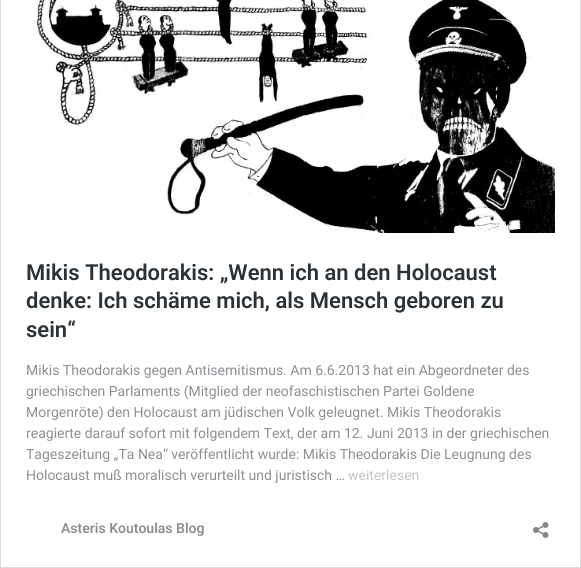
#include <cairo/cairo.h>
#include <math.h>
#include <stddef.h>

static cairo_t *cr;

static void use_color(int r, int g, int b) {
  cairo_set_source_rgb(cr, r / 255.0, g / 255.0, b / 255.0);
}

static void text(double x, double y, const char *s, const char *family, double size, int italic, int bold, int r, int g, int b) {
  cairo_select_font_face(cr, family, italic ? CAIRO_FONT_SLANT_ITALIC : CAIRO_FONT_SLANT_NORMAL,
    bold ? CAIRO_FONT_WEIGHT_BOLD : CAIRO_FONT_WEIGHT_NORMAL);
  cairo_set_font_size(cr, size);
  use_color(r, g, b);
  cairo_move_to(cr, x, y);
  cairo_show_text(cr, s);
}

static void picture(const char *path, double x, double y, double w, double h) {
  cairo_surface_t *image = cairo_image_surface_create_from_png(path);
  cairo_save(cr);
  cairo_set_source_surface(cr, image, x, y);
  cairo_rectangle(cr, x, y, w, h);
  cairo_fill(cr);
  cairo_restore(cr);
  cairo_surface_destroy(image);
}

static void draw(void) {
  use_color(255, 255, 255);
  cairo_paint(cr);
  cairo_rectangle(cr, 0.5, -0.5, 580, 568);
  use_color(220, 220, 222);
  cairo_set_line_width(cr, 1);
  cairo_stroke(cr);
  picture("img_01.png", 35, 0, 520, 233);
  picture("img_02.png", 533, 522, 16, 16);
  text(26, 280, "Mikis Theodorakis: „Wenn ich an den Holocaust", "Roboto SemiBold", 22, 0, 0, 44, 51, 56);
  text(26, 308, "denke: Ich schäme mich, als Mensch geboren zu", "Roboto SemiBold", 22, 0, 0, 44, 51, 56);
  text(26, 337, "sein“", "Roboto SemiBold", 22, 0, 0, 44, 51, 56);
  text(26, 375, "Mikis Theodorakis gegen Antisemitismus. Am 6.6.2013 hat ein Abgeordneter des", "Roboto", 14, 0, 0, 140, 143, 148);
  text(26, 396, "griechischen Parlaments (Mitglied der neofaschistischen Partei Goldene", "Roboto", 14, 0, 0, 140, 143, 148);
  text(26, 417, "Morgenröte) den Holocaust am jüdischen Volk geleugnet. Mikis Theodorakis", "Roboto", 14, 0, 0, 140, 143, 148);
  text(26, 438, "reagierte darauf sofort mit folgendem Text, der am 12. Juni 2013 in der griechischen", "Roboto", 14, 0, 0, 140, 143, 148);
  text(26, 459, "Tageszeitung „Ta Nea“ veröffentlicht wurde: Mikis Theodorakis Die Leugnung des", "Roboto", 14, 0, 0, 140, 143, 148);
  text(26, 480, "Holocaust muß moralisch verurteilt und juristisch …", "Roboto", 14, 0, 0, 140, 143, 148);
  text(348, 480, "weiterlesen", "Roboto", 14, 0, 0, 195, 196, 199);
  text(61, 533, "Asteris Koutoulas Blog", "Roboto SemiBold", 14, 0, 0, 140, 143, 148);
}

int main(void) {
  cairo_surface_t *surface = cairo_image_surface_create(CAIRO_FORMAT_RGB24, 581, 568);
  cr = cairo_create(surface);
  cairo_font_options_t *options = cairo_font_options_create();
  cairo_font_options_set_hint_metrics(options, CAIRO_HINT_METRICS_OFF);
  cairo_font_options_set_hint_style(options, CAIRO_HINT_STYLE_NONE);
  cairo_set_font_options(cr, options);
  cairo_set_miter_limit(cr, 4);
  draw();
  cairo_surface_write_to_png(surface, "out.png");
  cairo_font_options_destroy(options);
  cairo_destroy(cr);
  cairo_surface_destroy(surface);
  return 0;
}
